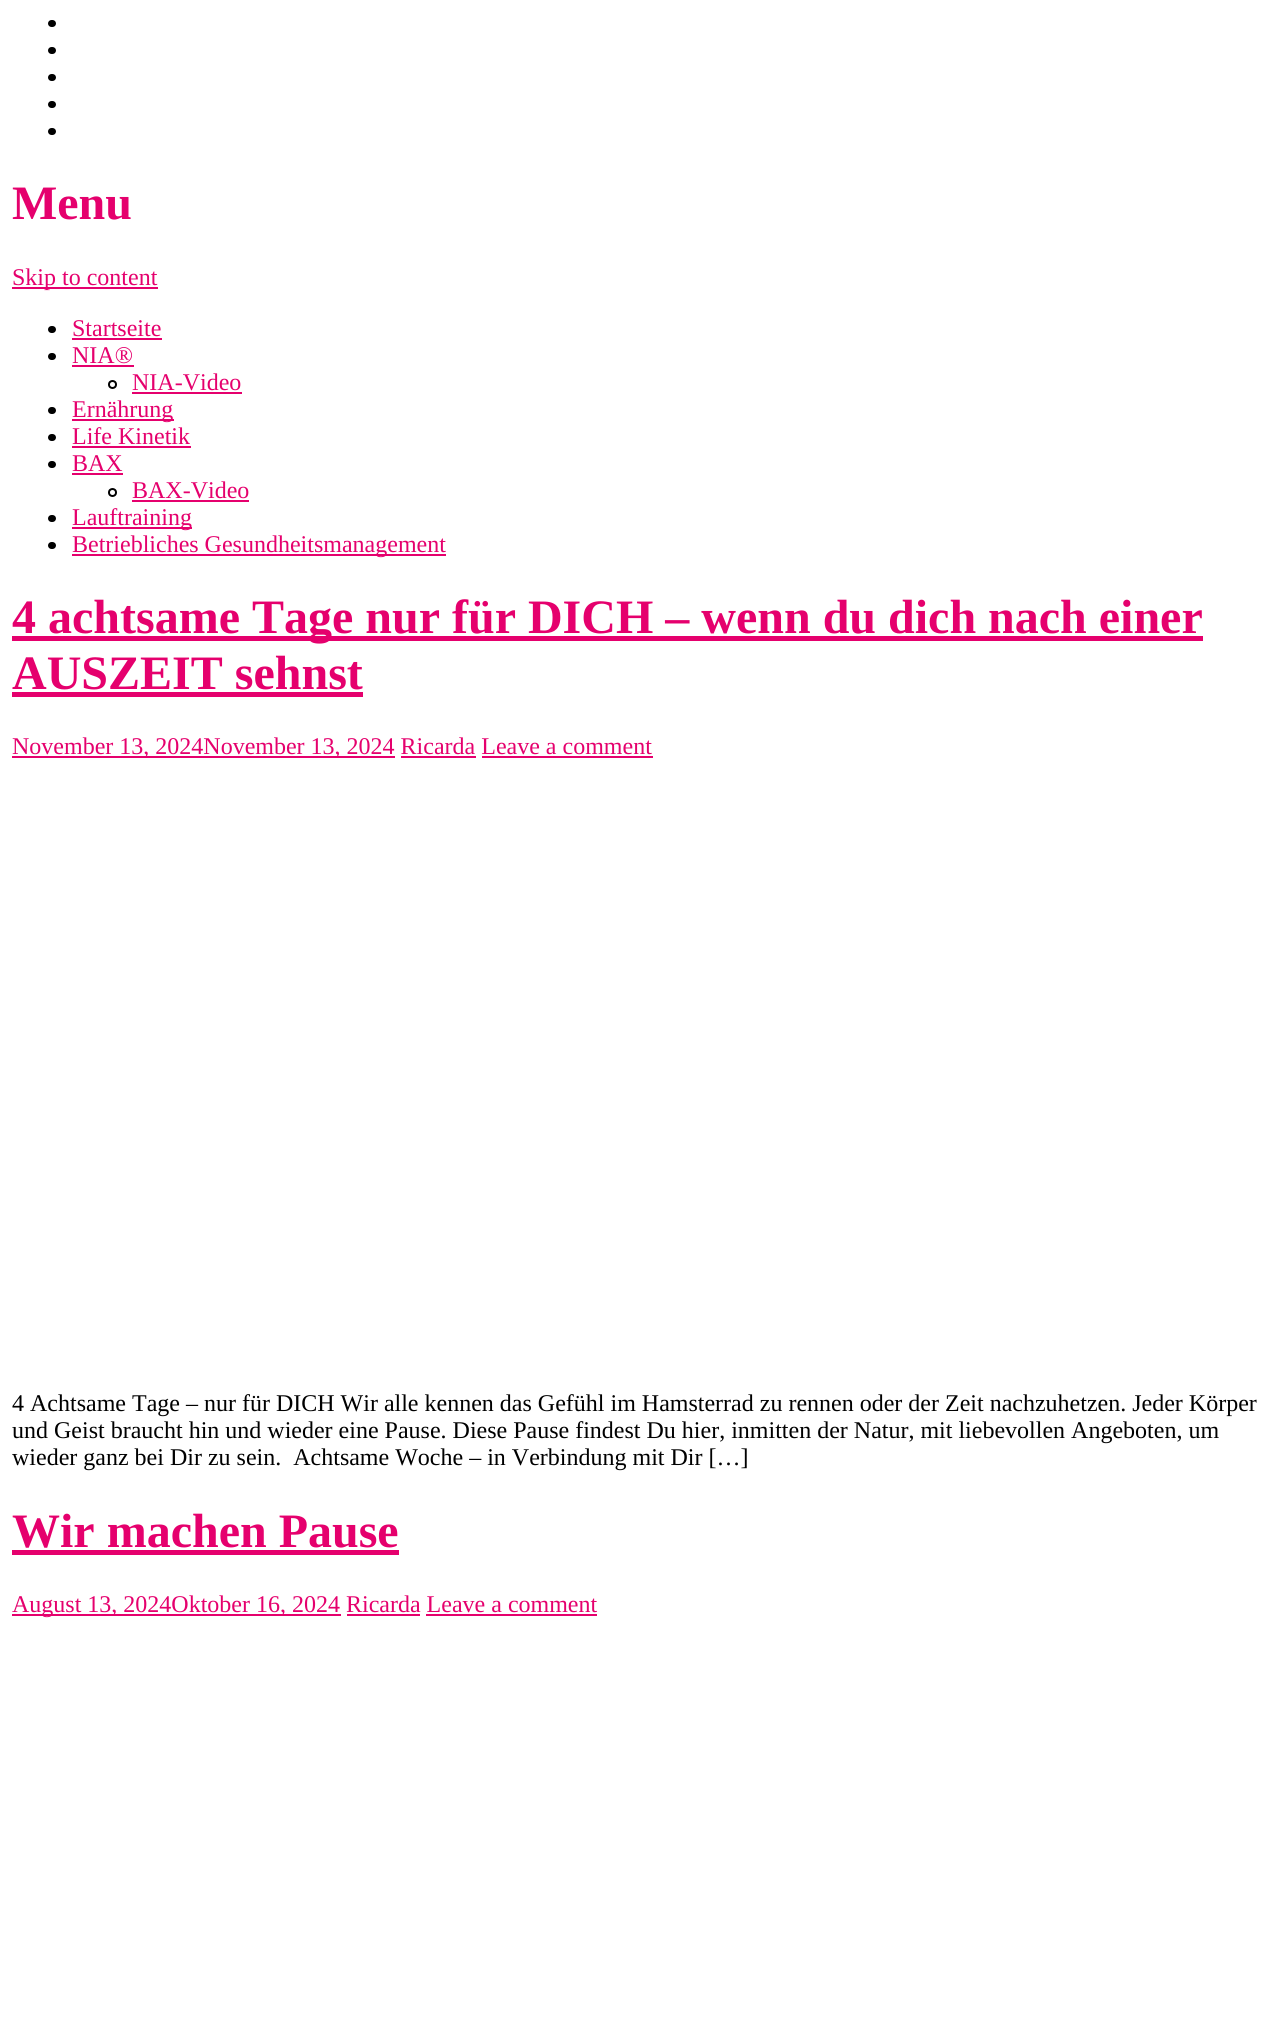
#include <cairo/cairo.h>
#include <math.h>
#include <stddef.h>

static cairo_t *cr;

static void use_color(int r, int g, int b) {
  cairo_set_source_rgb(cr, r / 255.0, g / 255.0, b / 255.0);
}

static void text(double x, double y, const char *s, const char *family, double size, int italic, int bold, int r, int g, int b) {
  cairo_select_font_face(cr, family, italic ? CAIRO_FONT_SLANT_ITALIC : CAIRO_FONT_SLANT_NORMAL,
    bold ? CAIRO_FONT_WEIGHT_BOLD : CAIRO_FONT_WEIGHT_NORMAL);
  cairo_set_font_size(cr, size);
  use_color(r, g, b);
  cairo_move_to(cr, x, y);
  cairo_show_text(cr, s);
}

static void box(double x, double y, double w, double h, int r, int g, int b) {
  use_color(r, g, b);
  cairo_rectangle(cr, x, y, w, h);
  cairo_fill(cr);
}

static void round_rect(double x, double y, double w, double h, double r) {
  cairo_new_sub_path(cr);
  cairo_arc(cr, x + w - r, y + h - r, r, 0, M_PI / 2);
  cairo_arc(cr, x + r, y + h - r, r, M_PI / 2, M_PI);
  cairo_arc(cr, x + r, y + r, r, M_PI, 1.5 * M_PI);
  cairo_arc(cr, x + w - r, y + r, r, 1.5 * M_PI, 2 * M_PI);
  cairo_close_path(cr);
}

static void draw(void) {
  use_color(255, 255, 255);
  cairo_paint(cr);
  use_color(0, 0, 0);
  round_rect(48, 20, 8, 7, 3.5);
  cairo_fill(cr);
  round_rect(48, 47, 8, 7, 3.5);
  cairo_fill(cr);
  round_rect(48, 74, 8, 7, 3.5);
  cairo_fill(cr);
  round_rect(48, 101, 8, 7, 3.5);
  cairo_fill(cr);
  round_rect(48, 128, 8, 7, 3.5);
  cairo_fill(cr);
  box(12, 287, 146, 2, 229, 0, 109);
  use_color(0, 0, 0);
  round_rect(48, 326, 8, 7, 3.5);
  cairo_fill(cr);
  box(72, 338, 90, 2, 229, 0, 109);
  use_color(0, 0, 0);
  round_rect(48, 353, 8, 7, 3.5);
  cairo_fill(cr);
  box(72, 365, 62, 2, 229, 0, 109);
  cairo_arc(cr, 112.5, 384.5, 3.5, 0, 2 * M_PI);
  use_color(0, 0, 0);
  cairo_stroke(cr);
  box(132, 392, 110, 2, 229, 0, 109);
  use_color(0, 0, 0);
  round_rect(48, 407, 8, 7, 3.5);
  cairo_fill(cr);
  box(72, 419, 102, 2, 229, 0, 109);
  use_color(0, 0, 0);
  round_rect(48, 434, 8, 7, 3.5);
  cairo_fill(cr);
  box(72, 446, 119, 2, 229, 0, 109);
  use_color(0, 0, 0);
  round_rect(48, 461, 8, 7, 3.5);
  cairo_fill(cr);
  box(72, 473, 51, 2, 229, 0, 109);
  cairo_arc(cr, 112.5, 492.5, 3.5, 0, 2 * M_PI);
  use_color(0, 0, 0);
  cairo_stroke(cr);
  box(132, 500, 117, 2, 229, 0, 109);
  use_color(0, 0, 0);
  round_rect(48, 515, 8, 7, 3.5);
  cairo_fill(cr);
  box(72, 527, 120, 2, 229, 0, 109);
  use_color(0, 0, 0);
  round_rect(48, 542, 8, 7, 3.5);
  cairo_fill(cr);
  box(72, 554, 374, 2, 229, 0, 109);
  box(12, 636, 1191, 5, 229, 0, 109);
  box(12, 692, 351, 5, 229, 0, 109);
  box(12, 756, 383, 2, 229, 0, 109);
  box(401, 756, 75, 2, 229, 0, 109);
  box(482, 756, 171, 2, 229, 0, 109);
  box(12, 1550, 387, 5, 229, 0, 109);
  box(12, 1614, 329, 2, 229, 0, 109);
  box(347, 1614, 73, 2, 229, 0, 109);
  box(426, 1614, 171, 2, 229, 0, 109);
  text(12, 219, "Menu", "Liberation Serif", 48, 0, 1, 229, 0, 109);
  text(12, 285, "Skip to content", "Liberation Serif", 24, 0, 0, 229, 0, 109);
  text(72, 336, "Startseite", "Liberation Serif", 24, 0, 0, 229, 0, 109);
  text(72, 363, "NIA®", "Liberation Serif", 24, 0, 0, 229, 0, 109);
  text(132, 390, "NIA-Video", "Liberation Serif", 24, 0, 0, 229, 0, 109);
  text(72, 417, "Ernährung", "Liberation Serif", 24, 0, 0, 229, 0, 109);
  text(72, 444, "Life Kinetik", "Liberation Serif", 24, 0, 0, 229, 0, 109);
  text(72, 471, "BAX", "Liberation Serif", 24, 0, 0, 229, 0, 109);
  text(132, 498, "BAX-Video", "Liberation Serif", 24, 0, 0, 229, 0, 109);
  text(72, 525, "Lauftraining", "Liberation Serif", 24, 0, 0, 229, 0, 109);
  text(72, 552, "Betriebliches Gesundheitsmanagement", "Liberation Serif", 24, 0, 0, 229, 0, 109);
  text(12, 633, "4 achtsame Tage nur für DICH – wenn du dich nach einer", "Liberation Serif", 48, 0, 1, 229, 0, 109);
  text(12, 689, "AUSZEIT sehnst", "Liberation Serif", 48, 0, 1, 229, 0, 109);
  text(12, 754, "November 13, 2024November 13, 2024 Ricarda Leave a comment", "Liberation Serif", 24, 0, 0, 229, 0, 109);
  text(12, 1411, "4 Achtsame Tage – nur für DICH Wir alle kennen das Gefühl im Hamsterrad zu rennen oder der Zeit nachzuhetzen. Jeder Körper", "Liberation Serif", 24, 0, 0, 0, 0, 0);
  text(12, 1438, "und Geist braucht hin und wieder eine Pause. Diese Pause findest Du hier, inmitten der Natur, mit liebevollen Angeboten, um", "Liberation Serif", 24, 0, 0, 0, 0, 0);
  text(12, 1465, "wieder ganz bei Dir zu sein.  Achtsame Woche – in Verbindung mit Dir […]", "Liberation Serif", 24, 0, 0, 0, 0, 0);
  text(12, 1547, "Wir machen Pause", "Liberation Serif", 48, 0, 1, 229, 0, 109);
  text(12, 1612, "August 13, 2024Oktober 16, 2024 Ricarda Leave a comment", "Liberation Serif", 24, 0, 0, 229, 0, 109);
}

int main(void) {
  cairo_surface_t *surface = cairo_image_surface_create(CAIRO_FORMAT_RGB24, 1285, 2021);
  cr = cairo_create(surface);
  cairo_font_options_t *options = cairo_font_options_create();
  cairo_font_options_set_hint_metrics(options, CAIRO_HINT_METRICS_OFF);
  cairo_font_options_set_hint_style(options, CAIRO_HINT_STYLE_NONE);
  cairo_set_font_options(cr, options);
  cairo_set_miter_limit(cr, 4);
  draw();
  cairo_surface_write_to_png(surface, "out.png");
  cairo_font_options_destroy(options);
  cairo_destroy(cr);
  cairo_surface_destroy(surface);
  return 0;
}
